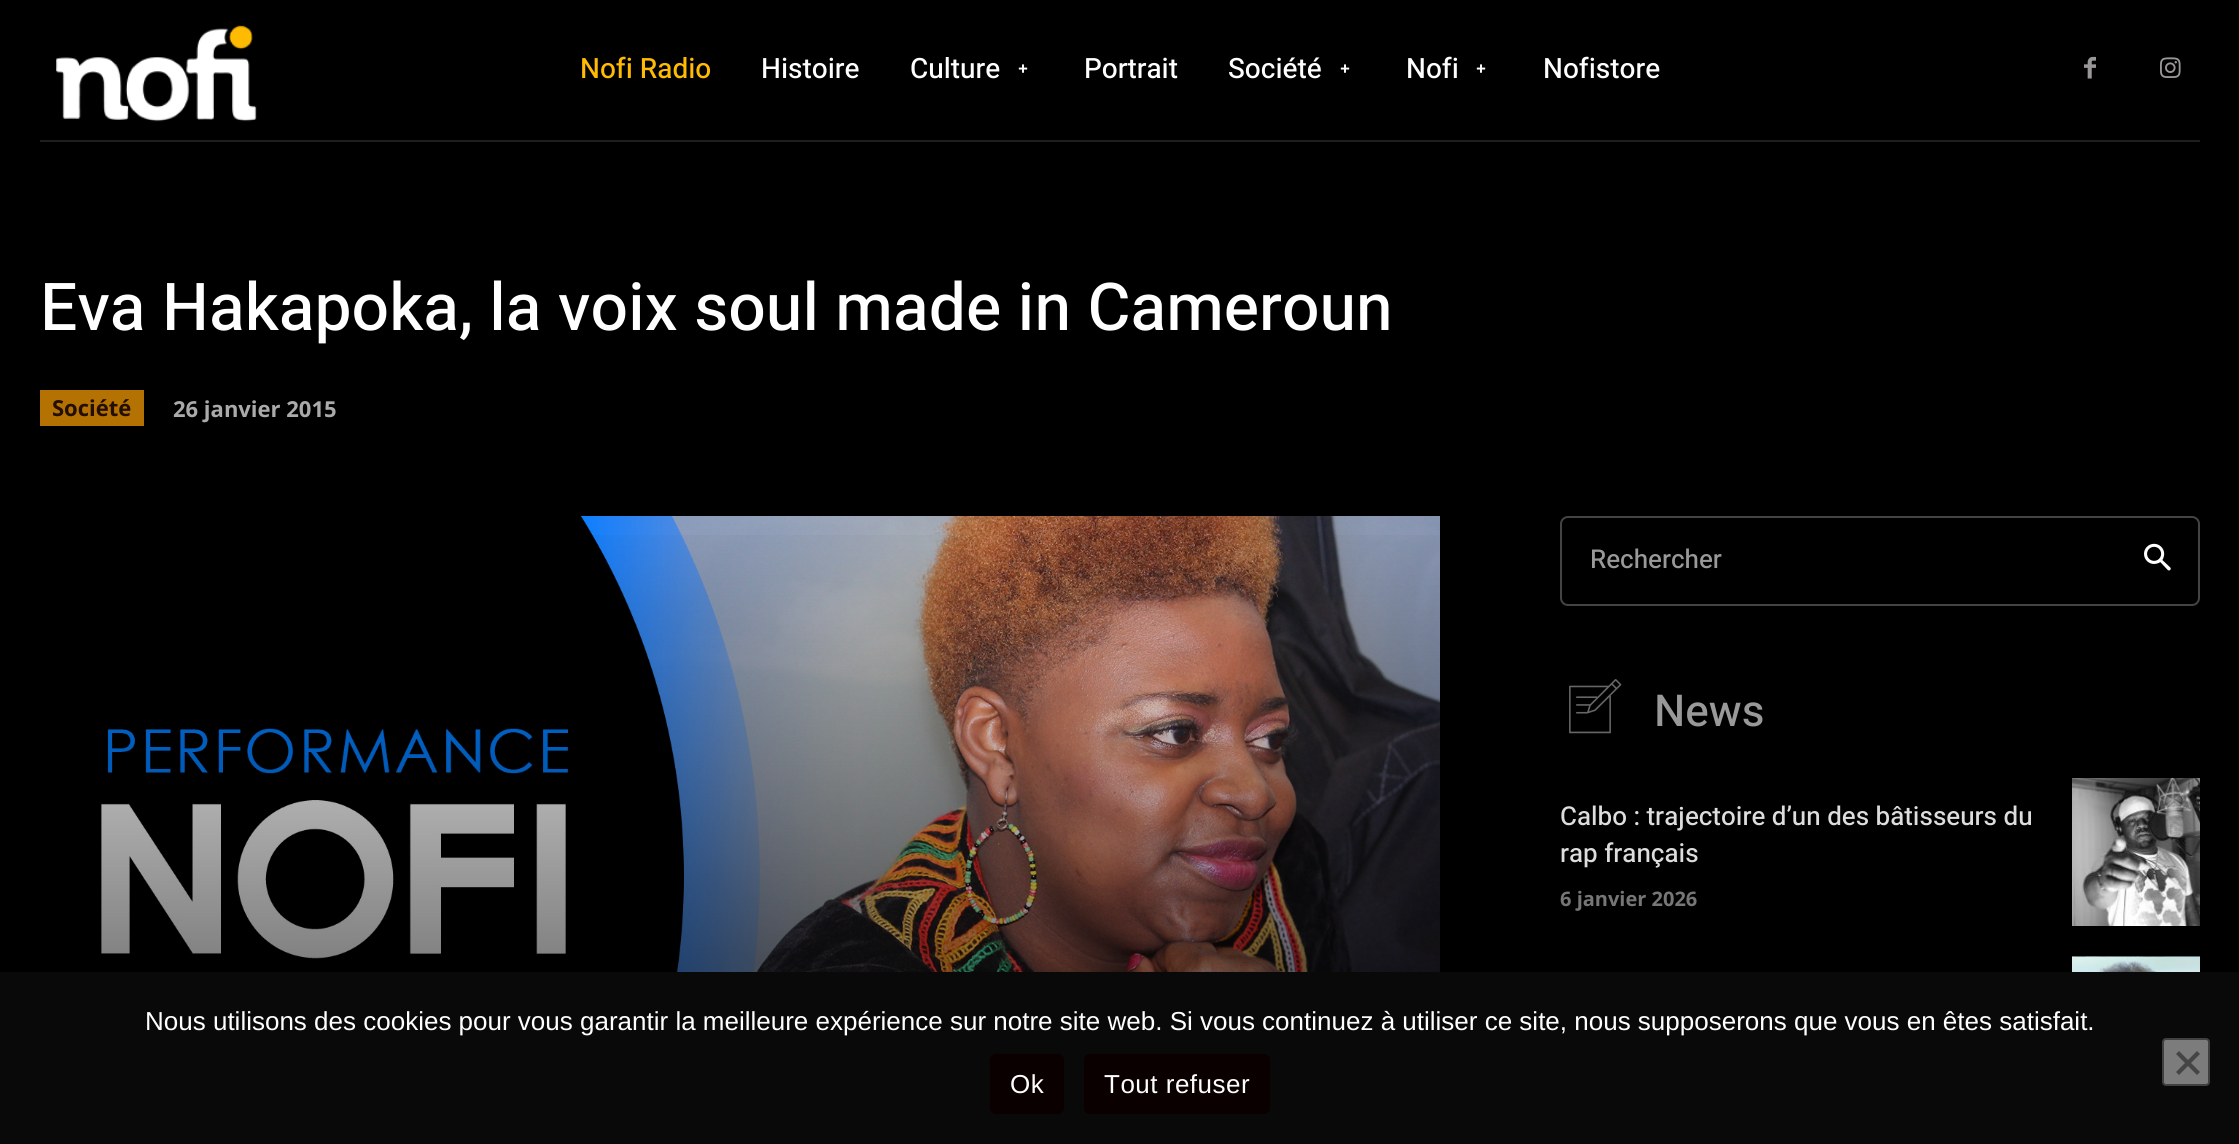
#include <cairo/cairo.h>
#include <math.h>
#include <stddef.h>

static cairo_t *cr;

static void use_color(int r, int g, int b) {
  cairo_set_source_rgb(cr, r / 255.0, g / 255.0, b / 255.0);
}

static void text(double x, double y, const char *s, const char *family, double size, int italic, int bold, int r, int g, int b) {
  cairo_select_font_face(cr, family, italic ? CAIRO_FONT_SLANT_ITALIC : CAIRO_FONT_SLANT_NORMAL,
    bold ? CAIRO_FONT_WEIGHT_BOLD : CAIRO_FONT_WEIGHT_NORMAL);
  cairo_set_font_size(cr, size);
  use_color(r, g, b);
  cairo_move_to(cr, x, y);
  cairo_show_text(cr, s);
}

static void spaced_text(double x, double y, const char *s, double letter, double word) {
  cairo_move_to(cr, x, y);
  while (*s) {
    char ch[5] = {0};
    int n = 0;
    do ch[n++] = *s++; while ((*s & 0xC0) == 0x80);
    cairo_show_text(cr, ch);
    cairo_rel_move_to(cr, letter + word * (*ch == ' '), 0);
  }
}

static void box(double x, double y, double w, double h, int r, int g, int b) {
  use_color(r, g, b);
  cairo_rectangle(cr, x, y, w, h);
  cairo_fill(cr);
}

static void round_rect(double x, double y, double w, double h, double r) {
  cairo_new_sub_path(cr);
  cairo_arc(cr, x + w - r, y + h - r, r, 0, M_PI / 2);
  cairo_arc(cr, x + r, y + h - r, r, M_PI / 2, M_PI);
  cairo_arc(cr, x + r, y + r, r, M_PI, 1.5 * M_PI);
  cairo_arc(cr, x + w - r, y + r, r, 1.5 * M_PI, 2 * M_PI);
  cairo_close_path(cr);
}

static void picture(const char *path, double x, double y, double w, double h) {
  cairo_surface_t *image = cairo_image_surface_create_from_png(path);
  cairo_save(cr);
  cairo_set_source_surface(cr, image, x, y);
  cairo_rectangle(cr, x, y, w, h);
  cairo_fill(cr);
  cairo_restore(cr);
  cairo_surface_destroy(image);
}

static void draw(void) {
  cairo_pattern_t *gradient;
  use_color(0, 0, 0);
  cairo_paint(cr);
  picture("img_01.png", 56, 25, 201, 97);
  picture("img_02.png", 1018, 64, 10, 9);
  picture("img_02.png", 1340, 64, 10, 9);
  picture("img_02.png", 1476, 64, 10, 9);
  picture("img_03.png", 2084, 56, 12, 23);
  picture("img_04.png", 2160, 57, 21, 21);
  box(40, 140, 2160, 2, 31, 30, 30);
  box(40, 390, 104, 36, 179, 114, 1);
  picture("img_05.png", 101, 516, 1339, 456);
  gradient = cairo_pattern_create_linear(740, 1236, 740, 516);
  cairo_pattern_add_color_stop_rgba(gradient, 0, 0, 0, 0, 1);
  cairo_pattern_add_color_stop_rgba(gradient, 0, 0, 0, 0, 0.8);
  cairo_pattern_add_color_stop_rgba(gradient, 1, 0, 0, 0, 0);
  cairo_set_source(cr, gradient);
  cairo_pattern_destroy(gradient);
  cairo_rectangle(cr, 101, 535, 1339, 437);
  cairo_fill(cr);
  round_rect(1561, 517, 638, 88, 7);
  use_color(68, 68, 68);
  cairo_stroke(cr);
  picture("img_06.png", 2144, 543, 27, 28);
  picture("img_07.png", 1569, 679, 53, 55);
  picture("img_08.png", 2072, 778, 128, 148);
  picture("img_09.png", 2072, 956, 128, 16);
  box(0, 972, 2239, 172, 10, 9, 9);
  use_color(10, 0, 0);
  round_rect(990, 1054, 74, 60, 6);
  cairo_fill(cr);
  round_rect(1084, 1054, 186, 60, 6);
  cairo_fill(cr);
  use_color(125, 124, 124);
  round_rect(2163, 1039, 46, 46, 3);
  cairo_fill_preserve(cr);
  use_color(64, 64, 64);
  cairo_stroke(cr);
  use_color(69, 69, 69);
  cairo_new_path(cr);
  cairo_move_to(cr, 2197, 1051);
  cairo_line_to(cr, 2200, 1054);
  cairo_line_to(cr, 2179, 1075);
  cairo_line_to(cr, 2176, 1072);
  cairo_close_path(cr);
  cairo_fill(cr);
  cairo_new_path(cr);
  cairo_move_to(cr, 2176, 1054);
  cairo_line_to(cr, 2179, 1051);
  cairo_line_to(cr, 2200, 1072);
  cairo_line_to(cr, 2197, 1075);
  cairo_close_path(cr);
  cairo_fill(cr);
  text(580, 78, "Nofi Radio", "Heebo Medium", 28, 0, 0, 255, 186, 2);
  text(761, 78, "Histoire", "Heebo Medium", 28, 0, 0, 255, 255, 255);
  text(910, 78, "Culture", "Heebo Medium", 28, 0, 0, 255, 255, 255);
  text(1084, 78, "Portrait", "Heebo Medium", 28, 0, 0, 255, 255, 255);
  text(1228, 78, "Société", "Heebo Medium", 28, 0, 0, 255, 255, 255);
  text(1406, 78, "Nofi", "Heebo Medium", 28, 0, 0, 255, 255, 255);
  text(1543, 78, "Nofistore", "Heebo Medium", 28, 0, 0, 255, 255, 255);
  text(40, 330, "Eva Hakapoka, la voix soul made in Cameroun", "Heebo Medium", 66, 0, 0, 255, 255, 255);
  text(52, 416, "Société", "Open Sans", 22, 0, 1, 35, 14, 0);
  text(173, 417, "26 janvier 2015", "Open Sans", 22, 0, 1, 170, 170, 170);
  text(1590, 568, "Rechercher", "Heebo Medium", 26, 0, 0, 153, 153, 153);
  text(1654, 726, "News", "Heebo Medium", 44, 0, 0, 153, 153, 153);
  text(1560, 825, "Calbo : trajectoire d’un des bâtisseurs du", "Heebo Medium", 26, 0, 0, 221, 221, 221);
  text(1560, 862, "rap français", "Heebo Medium", 26, 0, 0, 221, 221, 221);
  text(1560, 906, "6 janvier 2026", "Open Sans", 20, 0, 1, 118, 118, 118);
  text(145, 1030, "Nous utilisons des cookies pour vous garantir la meilleure expérience sur notre site web. Si vous continuez à utiliser ce site, nous supposerons que vous en êtes satisfait.", "Liberation Sans", 26, 0, 0, 255, 255, 255);
  spaced_text(1010, 1093, "Ok", 0.5, 0);
  spaced_text(1104, 1093, "Tout refuser", 0.5, 0);
}

int main(void) {
  cairo_surface_t *surface = cairo_image_surface_create(CAIRO_FORMAT_RGB24, 2239, 1144);
  cr = cairo_create(surface);
  cairo_font_options_t *options = cairo_font_options_create();
  cairo_font_options_set_hint_metrics(options, CAIRO_HINT_METRICS_OFF);
  cairo_font_options_set_hint_style(options, CAIRO_HINT_STYLE_NONE);
  cairo_set_font_options(cr, options);
  cairo_set_miter_limit(cr, 4);
  draw();
  cairo_surface_write_to_png(surface, "out.png");
  cairo_font_options_destroy(options);
  cairo_destroy(cr);
  cairo_surface_destroy(surface);
  return 0;
}
